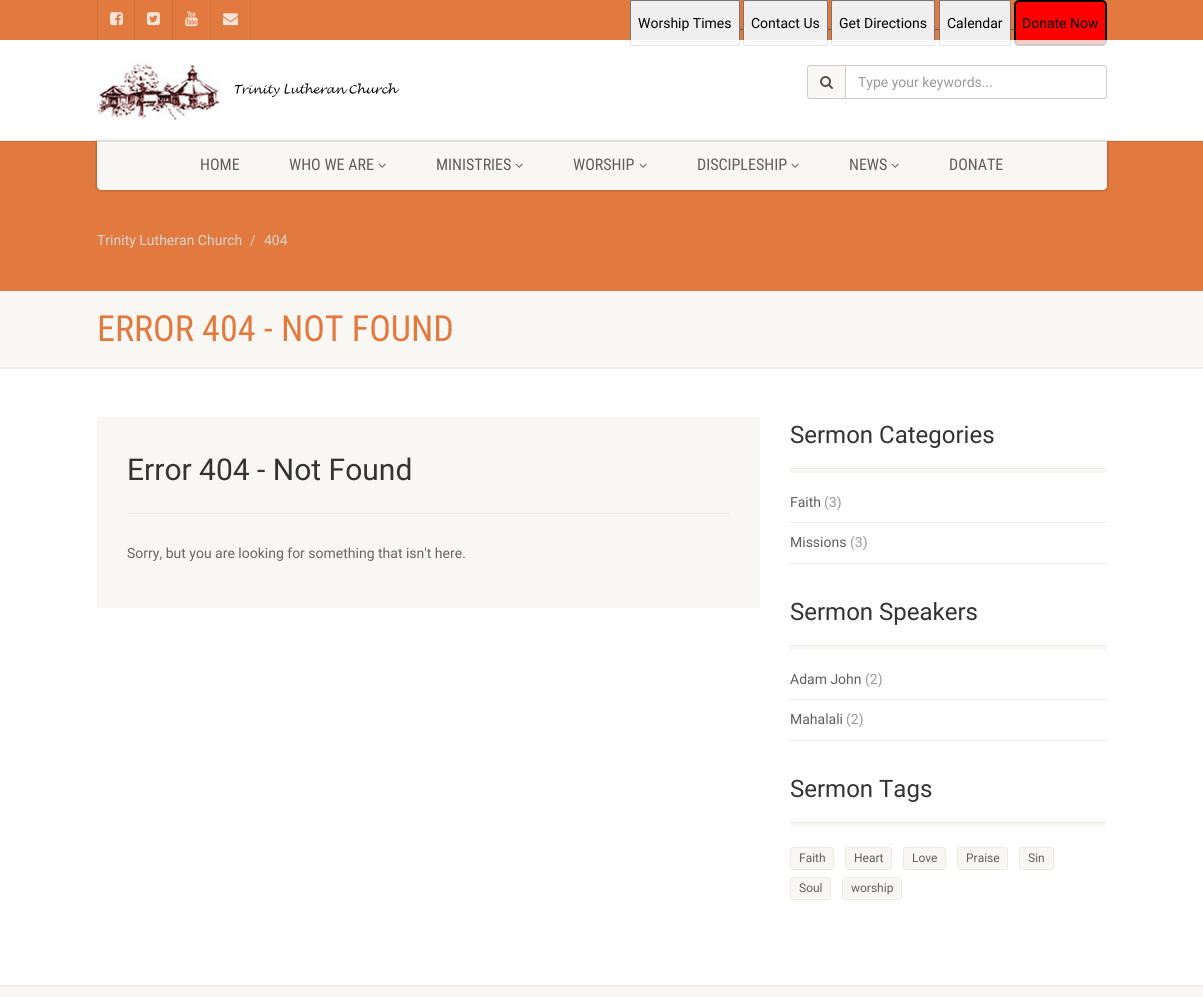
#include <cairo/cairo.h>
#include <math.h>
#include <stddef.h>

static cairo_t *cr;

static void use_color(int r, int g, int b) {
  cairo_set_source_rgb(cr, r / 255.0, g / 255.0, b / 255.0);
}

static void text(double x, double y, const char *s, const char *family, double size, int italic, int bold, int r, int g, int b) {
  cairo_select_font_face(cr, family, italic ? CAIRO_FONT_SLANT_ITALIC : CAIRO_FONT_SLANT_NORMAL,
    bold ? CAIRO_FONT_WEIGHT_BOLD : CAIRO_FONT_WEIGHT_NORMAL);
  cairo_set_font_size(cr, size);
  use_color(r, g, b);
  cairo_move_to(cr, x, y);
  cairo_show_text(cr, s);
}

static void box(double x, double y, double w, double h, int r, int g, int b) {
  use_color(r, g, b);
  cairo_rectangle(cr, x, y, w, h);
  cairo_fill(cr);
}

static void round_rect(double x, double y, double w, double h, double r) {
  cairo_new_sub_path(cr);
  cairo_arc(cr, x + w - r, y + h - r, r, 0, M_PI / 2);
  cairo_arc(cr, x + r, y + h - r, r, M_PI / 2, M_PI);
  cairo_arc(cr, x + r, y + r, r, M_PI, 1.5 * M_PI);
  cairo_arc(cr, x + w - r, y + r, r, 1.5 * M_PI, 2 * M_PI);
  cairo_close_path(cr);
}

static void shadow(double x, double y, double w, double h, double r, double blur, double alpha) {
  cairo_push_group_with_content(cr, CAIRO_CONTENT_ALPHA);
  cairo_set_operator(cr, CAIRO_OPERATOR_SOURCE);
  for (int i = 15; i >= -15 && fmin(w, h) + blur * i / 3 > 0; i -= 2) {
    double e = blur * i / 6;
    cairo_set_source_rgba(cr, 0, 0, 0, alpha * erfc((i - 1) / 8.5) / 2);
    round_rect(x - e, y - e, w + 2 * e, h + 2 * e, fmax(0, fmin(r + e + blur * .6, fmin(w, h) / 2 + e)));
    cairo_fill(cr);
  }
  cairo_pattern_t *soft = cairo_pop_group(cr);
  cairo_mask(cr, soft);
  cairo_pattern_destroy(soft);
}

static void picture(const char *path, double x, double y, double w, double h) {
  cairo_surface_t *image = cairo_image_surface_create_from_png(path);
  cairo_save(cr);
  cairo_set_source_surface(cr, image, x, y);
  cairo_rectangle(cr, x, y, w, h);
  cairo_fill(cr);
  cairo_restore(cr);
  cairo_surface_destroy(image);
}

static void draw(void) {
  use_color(255, 255, 255);
  cairo_paint(cr);
  box(0, 0, 1203, 40, 226, 122, 63);
  box(134, 0, 1, 40, 208, 112, 58);
  box(97, 0, 1, 40, 208, 112, 58);
  picture("img_01.png", 110, 12, 13, 14);
  box(172, 0, 1, 40, 208, 112, 58);
  picture("img_02.png", 147, 12, 13, 14);
  box(210, 0, 1, 40, 208, 112, 58);
  picture("img_03.png", 185, 11, 13, 16);
  box(250, 0, 1, 40, 208, 112, 58);
  picture("img_04.png", 223, 13, 15, 13);
  use_color(239, 239, 239);
  round_rect(630.5, 0.5, 109, 45, 1.5);
  cairo_fill_preserve(cr);
  use_color(118, 118, 118);
  cairo_set_line_width(cr, 1);
  cairo_stroke(cr);
  box(740, 29, 3, 1, 94, 94, 94);
  use_color(239, 239, 239);
  round_rect(743.5, 0.5, 84, 45, 1.5);
  cairo_fill_preserve(cr);
  use_color(118, 118, 118);
  cairo_stroke(cr);
  box(828, 29, 3, 1, 94, 94, 94);
  use_color(239, 239, 239);
  round_rect(831.5, 0.5, 103, 45, 1.5);
  cairo_fill_preserve(cr);
  use_color(118, 118, 118);
  cairo_stroke(cr);
  box(935, 29, 4, 1, 94, 94, 94);
  use_color(239, 239, 239);
  round_rect(939.5, 0.5, 71, 45, 1.5);
  cairo_fill_preserve(cr);
  use_color(118, 118, 118);
  cairo_stroke(cr);
  box(1011, 29, 3, 1, 94, 94, 94);
  use_color(255, 0, 0);
  round_rect(1015, 1, 91, 44, 4);
  cairo_fill_preserve(cr);
  use_color(0, 0, 0);
  cairo_set_line_width(cr, 2);
  cairo_stroke(cr);
  box(0, 141, 1203, 150, 226, 122, 63);
  use_color(0, 0, 0);
  shadow(97, 140, 1010, 50, 4, 1.5, 0.4);
  use_color(248, 247, 243);
  cairo_new_path(cr);
  cairo_move_to(cr, 97, 140);
  cairo_line_to(cr, 1107, 140);
  cairo_line_to(cr, 1107, 186);
  cairo_curve_to(cr, 1107, 188, 1105, 190, 1103, 190);
  cairo_line_to(cr, 101, 190);
  cairo_curve_to(cr, 99, 190, 97, 188, 97, 186);
  cairo_close_path(cr);
  cairo_fill(cr);
  cairo_set_source_rgba(cr, 0, 0, 0, 0.1);
  cairo_rectangle(cr, 0, 140, 1203, 2);
  cairo_fill(cr);
  cairo_set_source_rgba(cr, 1, 1, 1, 0.8);
  cairo_rectangle(cr, 96, 40, 1012, 100);
  cairo_fill(cr);
  picture("img_05.png", 97, 61, 303, 59);
  use_color(248, 247, 243);
  cairo_new_path(cr);
  cairo_move_to(cr, 810, 65);
  cairo_line_to(cr, 845, 65);
  cairo_line_to(cr, 845, 99);
  cairo_line_to(cr, 810, 99);
  cairo_curve_to(cr, 808.5, 99, 807, 97.5, 807, 96);
  cairo_line_to(cr, 807, 68);
  cairo_curve_to(cr, 807, 66.5, 808.5, 65, 810, 65);
  cairo_close_path(cr);
  cairo_fill(cr);
  use_color(204, 204, 204);
  cairo_set_fill_rule(cr, CAIRO_FILL_RULE_EVEN_ODD);
  cairo_new_path(cr);
  cairo_move_to(cr, 810, 65);
  cairo_line_to(cr, 845, 65);
  cairo_line_to(cr, 845, 99);
  cairo_line_to(cr, 810, 99);
  cairo_curve_to(cr, 808.5, 99, 807, 97.5, 807, 96);
  cairo_line_to(cr, 807, 68);
  cairo_curve_to(cr, 807, 66.5, 808.5, 65, 810, 65);
  cairo_close_path(cr);
  cairo_move_to(cr, 810, 66);
  cairo_line_to(cr, 845, 66);
  cairo_line_to(cr, 845, 98);
  cairo_line_to(cr, 810, 98);
  cairo_curve_to(cr, 809, 98, 808, 97, 808, 96);
  cairo_line_to(cr, 808, 68);
  cairo_curve_to(cr, 808, 67, 809, 66, 810, 66);
  cairo_close_path(cr);
  cairo_fill(cr);
  picture("img_06.png", 820, 76, 13, 13);
  cairo_new_path(cr);
  cairo_move_to(cr, 845.5, 65.5);
  cairo_line_to(cr, 1104, 65.5);
  cairo_curve_to(cr, 1105.5, 65.5, 1106.5, 66.5, 1106.5, 68);
  cairo_line_to(cr, 1106.5, 96);
  cairo_curve_to(cr, 1106.5, 97.5, 1105.5, 98.5, 1104, 98.5);
  cairo_line_to(cr, 845.5, 98.5);
  cairo_close_path(cr);
  cairo_set_line_width(cr, 1);
  cairo_stroke(cr);
  picture("img_07.png", 378, 163, 8, 5);
  picture("img_07.png", 515, 163, 8, 5);
  picture("img_07.png", 639, 163, 8, 5);
  picture("img_07.png", 791, 163, 8, 5);
  picture("img_07.png", 891, 163, 8, 5);
  box(0, 367, 1203, 2, 237, 237, 237);
  box(0, 291, 1203, 76, 248, 247, 243);
  box(97, 417, 663, 191, 248, 247, 243);
  box(127, 513, 603, 1, 236, 234, 228);
  box(790, 469, 316, 4, 248, 247, 243);
  box(790, 468, 316, 1, 236, 234, 228);
  box(790, 522, 316, 1, 236, 234, 228);
  box(790, 563, 316, 1, 236, 234, 228);
  box(790, 646, 316, 4, 248, 247, 243);
  box(790, 645, 316, 1, 236, 234, 228);
  box(790, 699, 316, 1, 236, 234, 228);
  box(790, 740, 316, 1, 236, 234, 228);
  box(790, 823, 316, 4, 248, 247, 243);
  box(790, 822, 316, 1, 236, 234, 228);
  use_color(248, 247, 243);
  round_rect(790.5, 847.5, 43, 22, 2.5);
  cairo_fill_preserve(cr);
  use_color(236, 234, 228);
  cairo_stroke(cr);
  use_color(248, 247, 243);
  round_rect(845.5, 847.5, 46, 22, 2.5);
  cairo_fill_preserve(cr);
  use_color(236, 234, 228);
  cairo_stroke(cr);
  use_color(248, 247, 243);
  round_rect(903.5, 847.5, 42, 22, 2.5);
  cairo_fill_preserve(cr);
  use_color(236, 234, 228);
  cairo_stroke(cr);
  use_color(248, 247, 243);
  round_rect(957.5, 847.5, 50, 22, 2.5);
  cairo_fill_preserve(cr);
  use_color(236, 234, 228);
  cairo_stroke(cr);
  use_color(248, 247, 243);
  round_rect(1019.5, 847.5, 34, 22, 2.5);
  cairo_fill_preserve(cr);
  use_color(236, 234, 228);
  cairo_stroke(cr);
  use_color(248, 247, 243);
  round_rect(790.5, 877.5, 40, 22, 2.5);
  cairo_fill_preserve(cr);
  use_color(236, 234, 228);
  cairo_stroke(cr);
  use_color(248, 247, 243);
  round_rect(842.5, 877.5, 59, 22, 2.5);
  cairo_fill_preserve(cr);
  use_color(236, 234, 228);
  cairo_stroke(cr);
  box(0, 985, 1203, 2, 237, 237, 237);
  box(0, 987, 1203, 10, 248, 247, 243);
  text(638, 28, "Worship Times", "Roboto", 14, 0, 0, 0, 0, 0);
  text(751, 28, "Contact Us", "Roboto", 14, 0, 0, 0, 0, 0);
  text(839, 28, "Get Directions", "Roboto", 14, 0, 0, 0, 0, 0);
  text(947, 28, "Calendar", "Roboto", 14, 0, 0, 0, 0, 0);
  text(1022, 28, "Donate Now", "Roboto", 14, 0, 0, 0, 0, 0);
  text(858, 87, "Type your keywords...", "Roboto", 14, 0, 0, 153, 153, 153);
  text(200, 170, "HOME", "Roboto Condensed", 16, 0, 0, 94, 94, 94);
  text(289, 170, "WHO WE ARE", "Roboto Condensed", 16, 0, 0, 94, 94, 94);
  text(436, 170, "MINISTRIES", "Roboto Condensed", 16, 0, 0, 94, 94, 94);
  text(573, 170, "WORSHIP", "Roboto Condensed", 16, 0, 0, 94, 94, 94);
  text(697, 170, "DISCIPLESHIP", "Roboto Condensed", 16, 0, 0, 94, 94, 94);
  text(849, 170, "NEWS", "Roboto Condensed", 16, 0, 0, 94, 94, 94);
  text(949, 170, "DONATE", "Roboto Condensed", 16, 0, 0, 94, 94, 94);
  text(97, 245, "Trinity Lutheran Church", "Roboto", 14, 0, 0, 216, 214, 209);
  text(250, 245, "/", "Roboto", 14, 0, 0, 204, 204, 204);
  text(264, 245, "404", "Roboto", 14, 0, 0, 216, 214, 209);
  text(97, 341, "ERROR 404 - NOT FOUND", "Roboto Condensed", 36, 0, 0, 226, 122, 63);
  text(127, 480, "Error 404 - Not Found", "Roboto", 30, 0, 0, 51, 51, 51);
  text(127, 558, "Sorry, but you are looking for something that isn't here.", "Roboto", 14, 0, 0, 102, 102, 102);
  text(790, 443, "Sermon Categories", "Roboto", 24, 0, 0, 51, 51, 51);
  text(790, 507, "Faith", "Roboto", 14, 0, 0, 94, 94, 94);
  text(824, 507, "(3)", "Roboto", 14, 0, 0, 153, 153, 153);
  text(790, 547, "Missions", "Roboto", 14, 0, 0, 94, 94, 94);
  text(850, 547, "(3)", "Roboto", 14, 0, 0, 153, 153, 153);
  text(790, 620, "Sermon Speakers", "Roboto", 24, 0, 0, 51, 51, 51);
  text(790, 684, "Adam John", "Roboto", 14, 0, 0, 94, 94, 94);
  text(865, 684, "(2)", "Roboto", 14, 0, 0, 153, 153, 153);
  text(790, 724, "Mahalali", "Roboto", 14, 0, 0, 94, 94, 94);
  text(846, 724, "(2)", "Roboto", 14, 0, 0, 153, 153, 153);
  text(790, 797, "Sermon Tags", "Roboto", 24, 0, 0, 51, 51, 51);
  text(799, 862, "Faith", "Roboto", 12, 0, 0, 94, 94, 94);
  text(854, 862, "Heart", "Roboto", 12, 0, 0, 94, 94, 94);
  text(912, 862, "Love", "Roboto", 12, 0, 0, 94, 94, 94);
  text(966, 862, "Praise", "Roboto", 12, 0, 0, 94, 94, 94);
  text(1028, 862, "Sin", "Roboto", 12, 0, 0, 94, 94, 94);
  text(799, 892, "Soul", "Roboto", 12, 0, 0, 94, 94, 94);
  text(851, 892, "worship", "Roboto", 12, 0, 0, 94, 94, 94);
}

int main(void) {
  cairo_surface_t *surface = cairo_image_surface_create(CAIRO_FORMAT_RGB24, 1203, 997);
  cr = cairo_create(surface);
  cairo_font_options_t *options = cairo_font_options_create();
  cairo_font_options_set_hint_metrics(options, CAIRO_HINT_METRICS_OFF);
  cairo_font_options_set_hint_style(options, CAIRO_HINT_STYLE_NONE);
  cairo_set_font_options(cr, options);
  cairo_set_miter_limit(cr, 4);
  draw();
  cairo_surface_write_to_png(surface, "out.png");
  cairo_font_options_destroy(options);
  cairo_destroy(cr);
  cairo_surface_destroy(surface);
  return 0;
}
